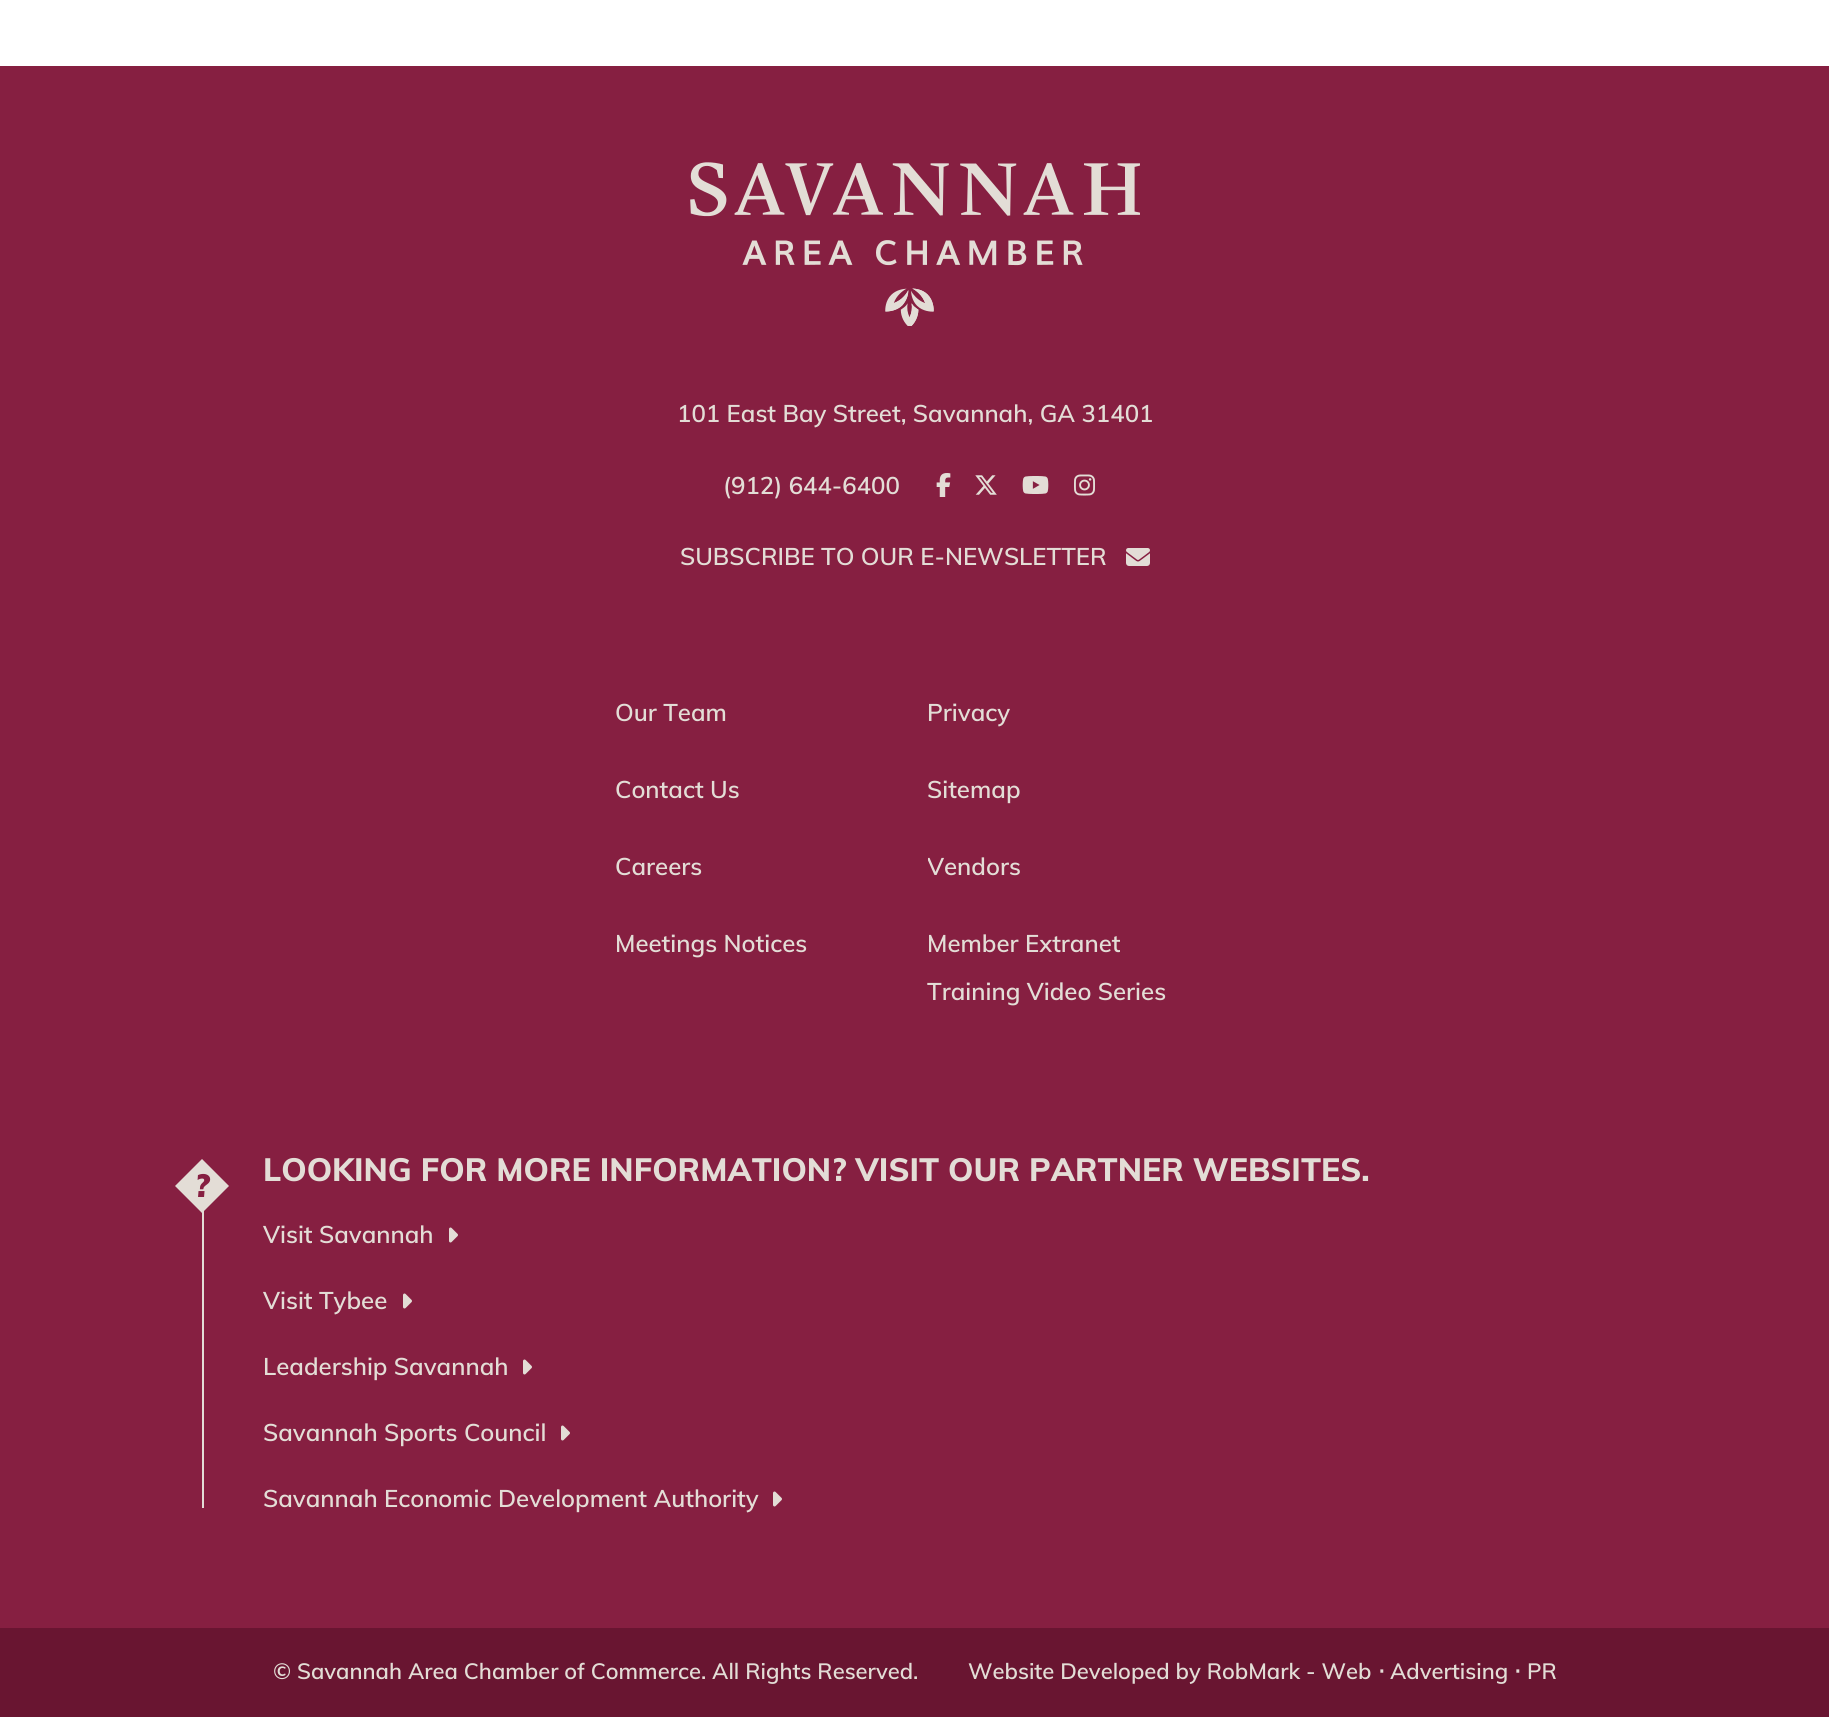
#include <cairo/cairo.h>
#include <math.h>
#include <stddef.h>

static cairo_t *cr;

static void use_color(int r, int g, int b) {
  cairo_set_source_rgb(cr, r / 255.0, g / 255.0, b / 255.0);
}

static void text(double x, double y, const char *s, const char *family, double size, int italic, int bold, int r, int g, int b) {
  cairo_select_font_face(cr, family, italic ? CAIRO_FONT_SLANT_ITALIC : CAIRO_FONT_SLANT_NORMAL,
    bold ? CAIRO_FONT_WEIGHT_BOLD : CAIRO_FONT_WEIGHT_NORMAL);
  cairo_set_font_size(cr, size);
  use_color(r, g, b);
  cairo_move_to(cr, x, y);
  cairo_show_text(cr, s);
}

static void box(double x, double y, double w, double h, int r, int g, int b) {
  use_color(r, g, b);
  cairo_rectangle(cr, x, y, w, h);
  cairo_fill(cr);
}

static void picture(const char *path, double x, double y, double w, double h) {
  cairo_surface_t *image = cairo_image_surface_create_from_png(path);
  cairo_save(cr);
  cairo_set_source_surface(cr, image, x, y);
  cairo_rectangle(cr, x, y, w, h);
  cairo_fill(cr);
  cairo_restore(cr);
  cairo_surface_destroy(image);
}

static void draw(void) {
  use_color(255, 255, 255);
  cairo_paint(cr);
  box(0, 66, 1829, 1562, 134, 31, 65);
  picture("img_01.png", 690, 162, 450, 164);
  picture("img_02.png", 936, 473, 15, 24);
  picture("img_03.png", 975, 475, 22, 20);
  picture("img_04.png", 1022, 476, 27, 18);
  picture("img_05.png", 1074, 474, 21, 22);
  picture("img_06.png", 1126, 548, 24, 18);
  box(202, 1211, 2, 297, 227, 221, 214);
  cairo_new_path(cr);
  cairo_move_to(cr, 202, 1159);
  cairo_line_to(cr, 229, 1186);
  cairo_line_to(cr, 202, 1213);
  cairo_line_to(cr, 175, 1186);
  cairo_close_path(cr);
  cairo_fill(cr);
  picture("img_07.png", 449, 1227, 9, 16);
  picture("img_07.png", 403, 1293, 9, 16);
  picture("img_07.png", 523, 1359, 9, 16);
  picture("img_07.png", 561, 1425, 9, 16);
  picture("img_07.png", 773, 1491, 9, 16);
  box(0, 1628, 1829, 89, 105, 21, 49);
  text(677, 422, "101 East Bay Street, Savannah, GA 31401", "Muli SemiBold", 24, 0, 0, 227, 221, 214);
  text(723, 494, "(912) 644-6400", "Muli SemiBold", 24, 0, 0, 227, 221, 214);
  text(680, 565, "SUBSCRIBE TO OUR E-NEWSLETTER", "Muli SemiBold", 24, 0, 0, 227, 221, 214);
  text(615, 721, "Our Team", "Muli SemiBold", 24, 0, 0, 227, 221, 214);
  text(927, 721, "Privacy", "Muli SemiBold", 24, 0, 0, 227, 221, 214);
  text(615, 798, "Contact Us", "Muli SemiBold", 24, 0, 0, 227, 221, 214);
  text(927, 798, "Sitemap", "Muli SemiBold", 24, 0, 0, 227, 221, 214);
  text(615, 875, "Careers", "Muli SemiBold", 24, 0, 0, 227, 221, 214);
  cairo_save(cr);
  cairo_rectangle(cr, 928, 844, 288, 60);
  cairo_clip(cr);
  text(927, 875, "Vendors", "Muli SemiBold", 24, 0, 0, 227, 221, 214);
  cairo_restore(cr);
  text(615, 952, "Meetings Notices", "Muli SemiBold", 24, 0, 0, 227, 221, 214);
  text(927, 952, "Member Extranet", "Muli SemiBold", 24, 0, 0, 227, 221, 214);
  text(927, 1000, "Training Video Series", "Muli SemiBold", 24, 0, 0, 227, 221, 214);
  text(194, 1197, "?", "Muli Black", 32, 1, 0, 134, 31, 65);
  text(263, 1181, "LOOKING FOR MORE INFORMATION? VISIT OUR PARTNER WEBSITES.", "Muli ExtraBold", 32, 0, 0, 227, 221, 214);
  text(263, 1243, "Visit Savannah", "Muli SemiBold", 24, 0, 0, 227, 221, 214);
  text(263, 1309, "Visit Tybee", "Muli SemiBold", 24, 0, 0, 227, 221, 214);
  text(263, 1375, "Leadership Savannah", "Muli SemiBold", 24, 0, 0, 227, 221, 214);
  text(263, 1441, "Savannah Sports Council", "Muli SemiBold", 24, 0, 0, 227, 221, 214);
  text(263, 1507, "Savannah Economic Development Authority", "Muli SemiBold", 24, 0, 0, 227, 221, 214);
  text(273, 1679, "© Savannah Area Chamber of Commerce. All Rights Reserved.", "Muli SemiBold", 22, 0, 0, 227, 221, 214);
  text(968, 1679, "Website Developed by RobMark - Web", "Muli SemiBold", 22, 0, 0, 227, 221, 214);
  text(1378, 1679, "⋅", "DejaVu Sans", 22, 0, 1, 227, 221, 214);
  text(1390, 1679, "Advertising", "Muli SemiBold", 22, 0, 0, 227, 221, 214);
  text(1514, 1679, "⋅", "DejaVu Sans", 22, 0, 1, 227, 221, 214);
  text(1527, 1679, "PR", "Muli SemiBold", 22, 0, 0, 227, 221, 214);
}

int main(void) {
  cairo_surface_t *surface = cairo_image_surface_create(CAIRO_FORMAT_RGB24, 1829, 1717);
  cr = cairo_create(surface);
  cairo_font_options_t *options = cairo_font_options_create();
  cairo_font_options_set_hint_metrics(options, CAIRO_HINT_METRICS_OFF);
  cairo_font_options_set_hint_style(options, CAIRO_HINT_STYLE_NONE);
  cairo_set_font_options(cr, options);
  cairo_set_miter_limit(cr, 4);
  draw();
  cairo_surface_write_to_png(surface, "out.png");
  cairo_font_options_destroy(options);
  cairo_destroy(cr);
  cairo_surface_destroy(surface);
  return 0;
}
